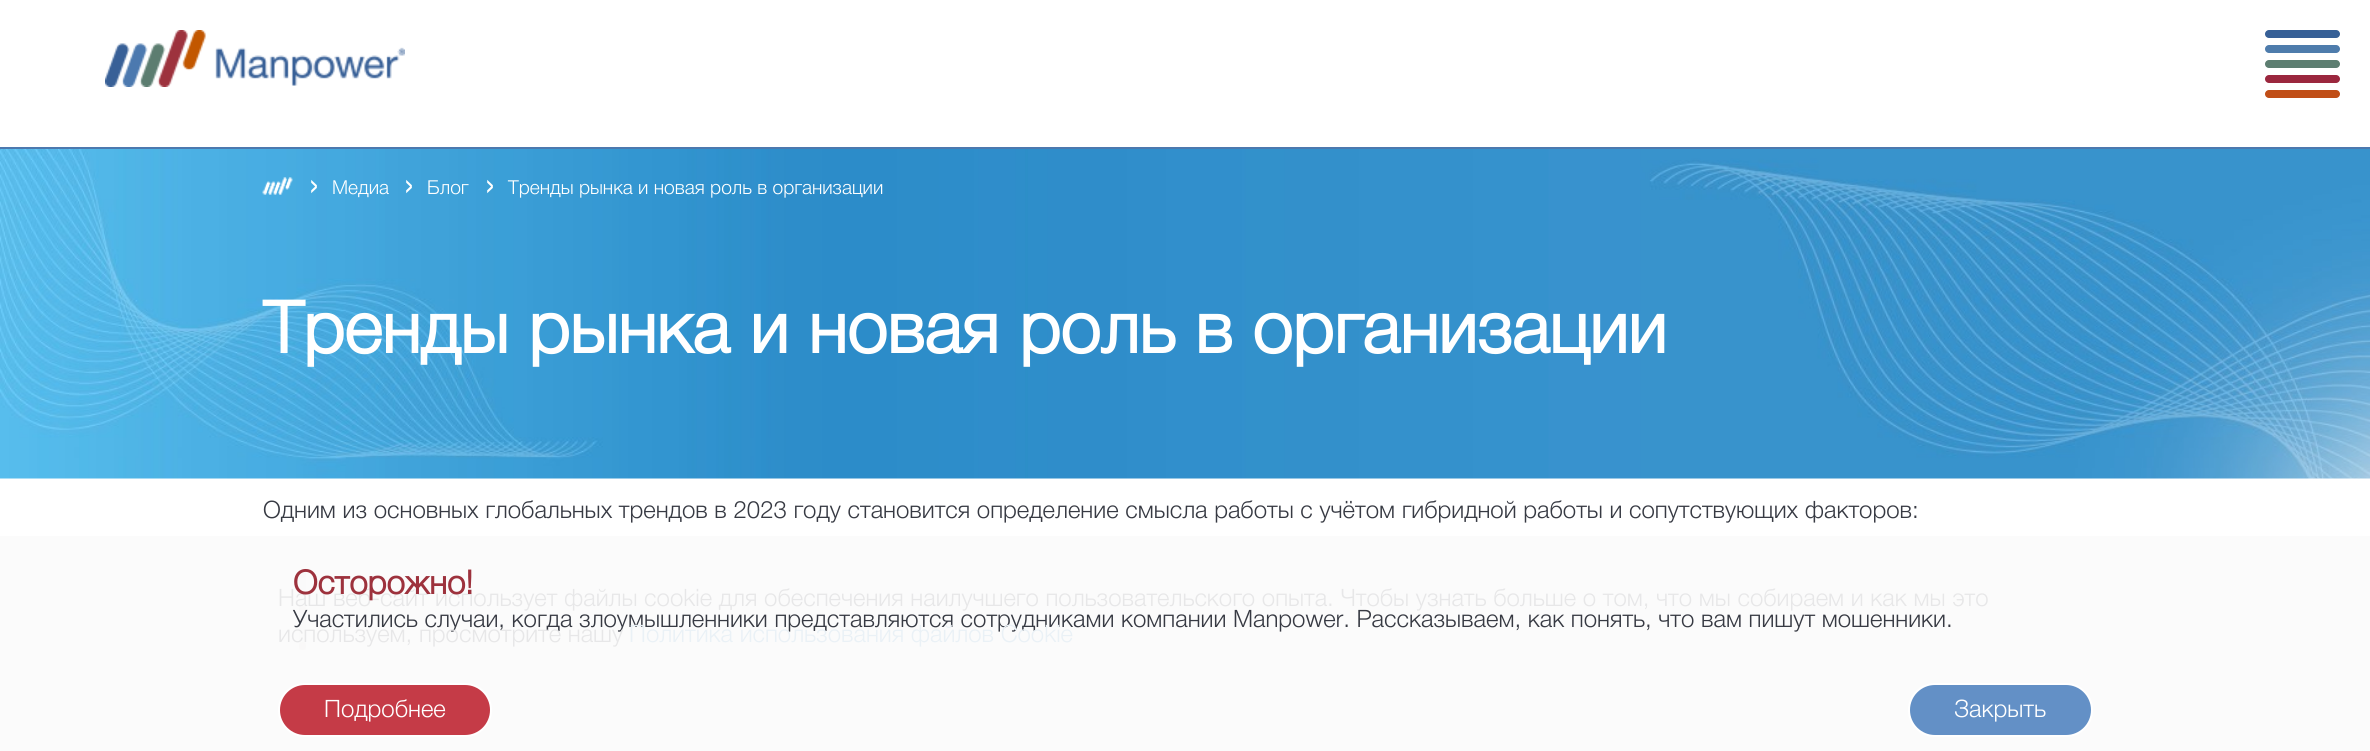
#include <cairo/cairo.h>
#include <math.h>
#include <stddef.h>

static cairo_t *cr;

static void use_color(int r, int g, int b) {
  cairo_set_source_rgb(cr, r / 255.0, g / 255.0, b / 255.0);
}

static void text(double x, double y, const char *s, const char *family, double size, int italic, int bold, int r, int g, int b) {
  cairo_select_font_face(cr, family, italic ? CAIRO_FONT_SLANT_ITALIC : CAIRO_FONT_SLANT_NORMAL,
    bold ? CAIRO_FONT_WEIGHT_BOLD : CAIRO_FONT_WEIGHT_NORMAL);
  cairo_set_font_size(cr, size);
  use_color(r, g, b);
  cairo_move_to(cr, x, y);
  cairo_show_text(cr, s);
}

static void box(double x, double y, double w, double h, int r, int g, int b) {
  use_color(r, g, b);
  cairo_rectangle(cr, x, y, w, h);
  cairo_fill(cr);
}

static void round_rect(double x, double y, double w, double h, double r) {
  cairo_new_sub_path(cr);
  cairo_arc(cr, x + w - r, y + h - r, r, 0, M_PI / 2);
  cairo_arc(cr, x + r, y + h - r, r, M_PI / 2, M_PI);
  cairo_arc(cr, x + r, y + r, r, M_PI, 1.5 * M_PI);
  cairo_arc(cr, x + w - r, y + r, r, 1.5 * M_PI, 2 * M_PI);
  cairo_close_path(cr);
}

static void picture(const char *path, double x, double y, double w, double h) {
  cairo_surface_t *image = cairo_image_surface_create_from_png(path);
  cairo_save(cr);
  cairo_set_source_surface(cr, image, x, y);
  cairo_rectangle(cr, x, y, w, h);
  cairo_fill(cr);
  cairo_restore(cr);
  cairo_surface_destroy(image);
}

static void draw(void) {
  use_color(255, 255, 255);
  cairo_paint(cr);
  box(0, 536, 2370, 215, 251, 251, 251);
  box(0, 147, 2370, 2, 76, 121, 175);
  picture("img_01.png", 105, 30, 300, 57);
  use_color(55, 96, 151);
  round_rect(2265, 30, 75, 8, 4);
  cairo_fill(cr);
  use_color(78, 124, 172);
  round_rect(2265, 45, 75, 8, 4);
  cairo_fill(cr);
  use_color(93, 126, 113);
  round_rect(2265, 60, 75, 8, 4);
  cairo_fill(cr);
  use_color(155, 39, 62);
  round_rect(2265, 75, 75, 8, 4);
  cairo_fill(cr);
  use_color(192, 78, 23);
  round_rect(2265, 90, 75, 8, 4);
  cairo_fill(cr);
  picture("img_02.png", 0, 149, 2370, 330);
  picture("img_03.png", 262, 177, 31, 18);
  use_color(248, 238, 230);
  round_rect(299, 570, 7, 8, 3.5);
  cairo_fill(cr);
  round_rect(299, 606, 7, 8, 3.5);
  cairo_fill(cr);
  round_rect(299, 642, 7, 8, 3.5);
  cairo_fill(cr);
  use_color(197, 59, 71);
  round_rect(279, 684, 212, 52, 26);
  cairo_fill_preserve(cr);
  use_color(255, 255, 255);
  cairo_stroke(cr);
  use_color(99, 144, 198);
  round_rect(1909, 684, 183, 52, 26);
  cairo_fill_preserve(cr);
  use_color(255, 255, 255);
  cairo_stroke(cr);
  cairo_set_source_rgba(cr, 0.98, 0.98, 0.98, 0.9);
  cairo_rectangle(cr, 299, 570, 7, 80);
  cairo_fill(cr);
  text(308, 198, "›", "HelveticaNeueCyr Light", 43, 0, 0, 255, 255, 255);
  text(332, 194, "Медиа", "HelveticaNeueCyr Light", 19.25, 0, 0, 255, 255, 255);
  text(403, 198, "›", "HelveticaNeueCyr Light", 43, 0, 0, 255, 255, 255);
  text(427, 194, "Блог", "HelveticaNeueCyr Light", 19.25, 0, 0, 255, 255, 255);
  text(484, 198, "›", "HelveticaNeueCyr Light", 43, 0, 0, 255, 255, 255);
  text(508, 194, "Тренды рынка и новая роль в организации", "HelveticaNeueCyr Light", 19.25, 0, 0, 255, 255, 255);
  text(263, 353, "Тренды рынка и новая роль в организации", "HelveticaNeueCyr", 72, 0, 1, 255, 255, 255);
  text(263, 518, "Одним из основных глобальных трендов в 2023 году становится определение смысла работы с учётом гибридной работы и сопутствующих факторов:", "HelveticaNeueCyr Light", 24, 0, 0, 55, 58, 67);
  text(293, 627, "Участились случаи, когда злоумышленники представляются сотрудниками компании Manpower. Рассказываем, как понять, что вам пишут мошенники.", "HelveticaNeueCyr Light", 24, 0, 0, 55, 58, 67);
  text(324, 717, "Подробнее", "HelveticaNeueCyr Light", 24, 0, 0, 255, 255, 255);
  text(1954, 717, "Закрыть", "HelveticaNeueCyr Light", 24, 0, 0, 255, 255, 255);
  text(278, 606, "Наш веб-сайт использует файлы cookie для обеспечения наилучшего пользовательского опыта. Чтобы узнать больше о том, что мы собираем и как мы это", "HelveticaNeueCyr Light", 24, 0, 0, 231, 231, 232);
  text(293, 594, "Осторожно!", "HelveticaNeueCyr", 33, 0, 1, 157, 50, 61);
  text(278, 642, "используем, просмотрите нашу", "HelveticaNeueCyr Light", 24, 0, 0, 231, 231, 232);
  text(629, 642, "Политика использования файлов Cookie", "HelveticaNeueCyr Light", 24, 0, 0, 234, 241, 246);
}

int main(void) {
  cairo_surface_t *surface = cairo_image_surface_create(CAIRO_FORMAT_RGB24, 2370, 751);
  cr = cairo_create(surface);
  cairo_font_options_t *options = cairo_font_options_create();
  cairo_font_options_set_hint_metrics(options, CAIRO_HINT_METRICS_OFF);
  cairo_font_options_set_hint_style(options, CAIRO_HINT_STYLE_NONE);
  cairo_set_font_options(cr, options);
  cairo_set_miter_limit(cr, 4);
  draw();
  cairo_surface_write_to_png(surface, "out.png");
  cairo_font_options_destroy(options);
  cairo_destroy(cr);
  cairo_surface_destroy(surface);
  return 0;
}
